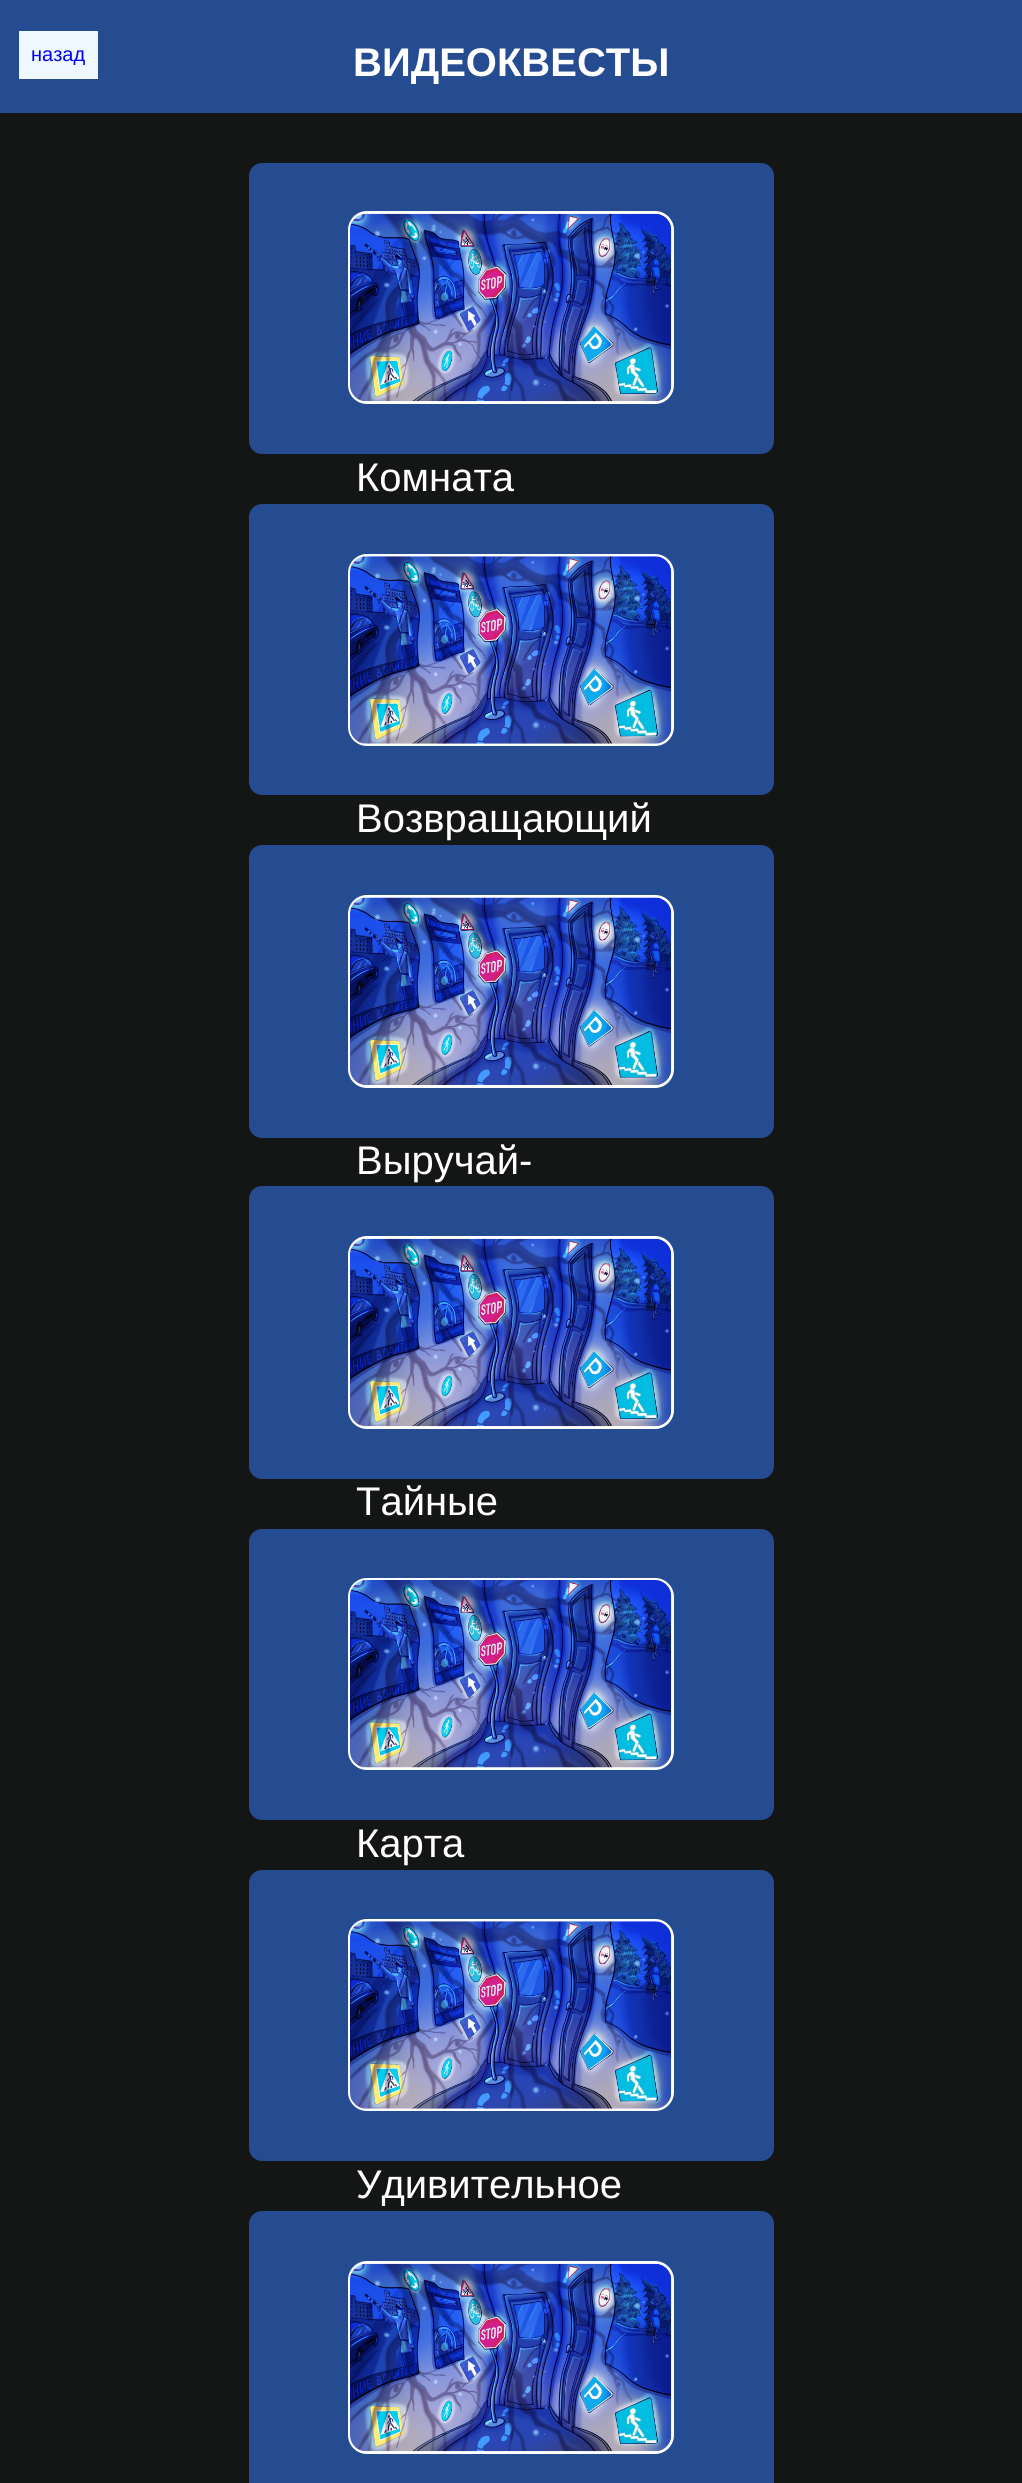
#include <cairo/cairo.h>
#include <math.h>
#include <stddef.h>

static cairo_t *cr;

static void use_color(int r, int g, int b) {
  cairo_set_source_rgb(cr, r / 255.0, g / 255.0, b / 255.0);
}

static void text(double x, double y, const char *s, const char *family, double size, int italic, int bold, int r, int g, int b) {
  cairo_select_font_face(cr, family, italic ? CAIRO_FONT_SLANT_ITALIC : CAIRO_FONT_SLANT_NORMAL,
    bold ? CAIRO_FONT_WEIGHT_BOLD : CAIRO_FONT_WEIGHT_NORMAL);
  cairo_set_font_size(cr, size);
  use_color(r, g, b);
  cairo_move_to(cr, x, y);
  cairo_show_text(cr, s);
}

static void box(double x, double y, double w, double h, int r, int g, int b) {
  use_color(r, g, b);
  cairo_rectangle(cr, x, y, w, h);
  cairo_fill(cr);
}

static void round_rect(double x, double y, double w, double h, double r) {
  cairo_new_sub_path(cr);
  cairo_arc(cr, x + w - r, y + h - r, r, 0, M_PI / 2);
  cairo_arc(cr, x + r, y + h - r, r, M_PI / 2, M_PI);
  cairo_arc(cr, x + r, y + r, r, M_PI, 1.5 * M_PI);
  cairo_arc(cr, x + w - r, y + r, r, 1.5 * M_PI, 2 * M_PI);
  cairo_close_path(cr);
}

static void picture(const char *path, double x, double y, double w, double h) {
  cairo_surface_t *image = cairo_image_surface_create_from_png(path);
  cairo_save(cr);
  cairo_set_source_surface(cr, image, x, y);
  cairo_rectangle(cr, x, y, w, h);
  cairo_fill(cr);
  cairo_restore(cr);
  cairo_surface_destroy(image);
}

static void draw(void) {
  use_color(20, 21, 21);
  cairo_paint(cr);
  box(0, 0, 1022, 113, 37, 75, 144);
  box(19, 31, 79, 48, 240, 248, 255);
  use_color(37, 75, 144);
  round_rect(249, 163, 525, 291, 13);
  cairo_fill(cr);
  round_rect(349.5, 212.5, 323, 190, 17.5);
  use_color(255, 255, 255);
  cairo_set_line_width(cr, 3);
  cairo_stroke(cr);
  picture("img_01.png", 350, 213, 322, 189);
  use_color(37, 75, 144);
  round_rect(249, 504, 525, 291, 13);
  cairo_fill(cr);
  round_rect(349.5, 555.5, 323, 189, 17.5);
  use_color(255, 255, 255);
  cairo_stroke(cr);
  picture("img_02.png", 350, 556, 322, 188);
  use_color(37, 75, 144);
  round_rect(249, 845, 525, 293, 13);
  cairo_fill(cr);
  round_rect(349.5, 896.5, 323, 190, 17.5);
  use_color(255, 255, 255);
  cairo_stroke(cr);
  picture("img_03.png", 350, 897, 322, 188);
  use_color(37, 75, 144);
  round_rect(249, 1186, 525, 293, 13);
  cairo_fill(cr);
  round_rect(349.5, 1237.5, 323, 190, 17.5);
  use_color(255, 255, 255);
  cairo_stroke(cr);
  picture("img_01.png", 350, 1238, 322, 189);
  use_color(37, 75, 144);
  round_rect(249, 1529, 525, 291, 13);
  cairo_fill(cr);
  round_rect(349.5, 1579.5, 323, 189, 17.5);
  use_color(255, 255, 255);
  cairo_stroke(cr);
  picture("img_04.png", 350, 1580, 322, 188);
  use_color(37, 75, 144);
  round_rect(249, 1870, 525, 291, 13);
  cairo_fill(cr);
  round_rect(349.5, 1920.5, 323, 189, 17.5);
  use_color(255, 255, 255);
  cairo_stroke(cr);
  picture("img_02.png", 350, 1921, 322, 188);
  use_color(37, 75, 144);
  round_rect(249, 2211, 525, 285, 13);
  cairo_fill(cr);
  round_rect(349.5, 2262.5, 323, 190, 17.5);
  use_color(255, 255, 255);
  cairo_stroke(cr);
  picture("img_01.png", 350, 2263, 322, 189);
  text(31, 61, "назад", "Liberation Sans", 20, 0, 0, 0, 0, 238);
  text(353, 76, "ВИДЕОКВЕСТЫ", "Liberation Sans", 40, 0, 1, 255, 255, 255);
  text(356, 491, "Комната", "Liberation Sans", 40, 0, 0, 255, 255, 255);
  text(356, 832, "Возвращающий", "Liberation Sans", 40, 0, 0, 255, 255, 255);
  text(356, 1174, "Выручай-", "Liberation Sans", 40, 0, 0, 255, 255, 255);
  text(356, 1515, "Тайные", "Liberation Sans", 40, 0, 0, 255, 255, 255);
  text(356, 1857, "Карта", "Liberation Sans", 40, 0, 0, 255, 255, 255);
  text(356, 2198, "Удивительное", "Liberation Sans", 40, 0, 0, 255, 255, 255);
}

int main(void) {
  cairo_surface_t *surface = cairo_image_surface_create(CAIRO_FORMAT_RGB24, 1022, 2483);
  cr = cairo_create(surface);
  cairo_font_options_t *options = cairo_font_options_create();
  cairo_font_options_set_hint_metrics(options, CAIRO_HINT_METRICS_OFF);
  cairo_font_options_set_hint_style(options, CAIRO_HINT_STYLE_NONE);
  cairo_set_font_options(cr, options);
  cairo_set_miter_limit(cr, 4);
  draw();
  cairo_surface_write_to_png(surface, "out.png");
  cairo_font_options_destroy(options);
  cairo_destroy(cr);
  cairo_surface_destroy(surface);
  return 0;
}
